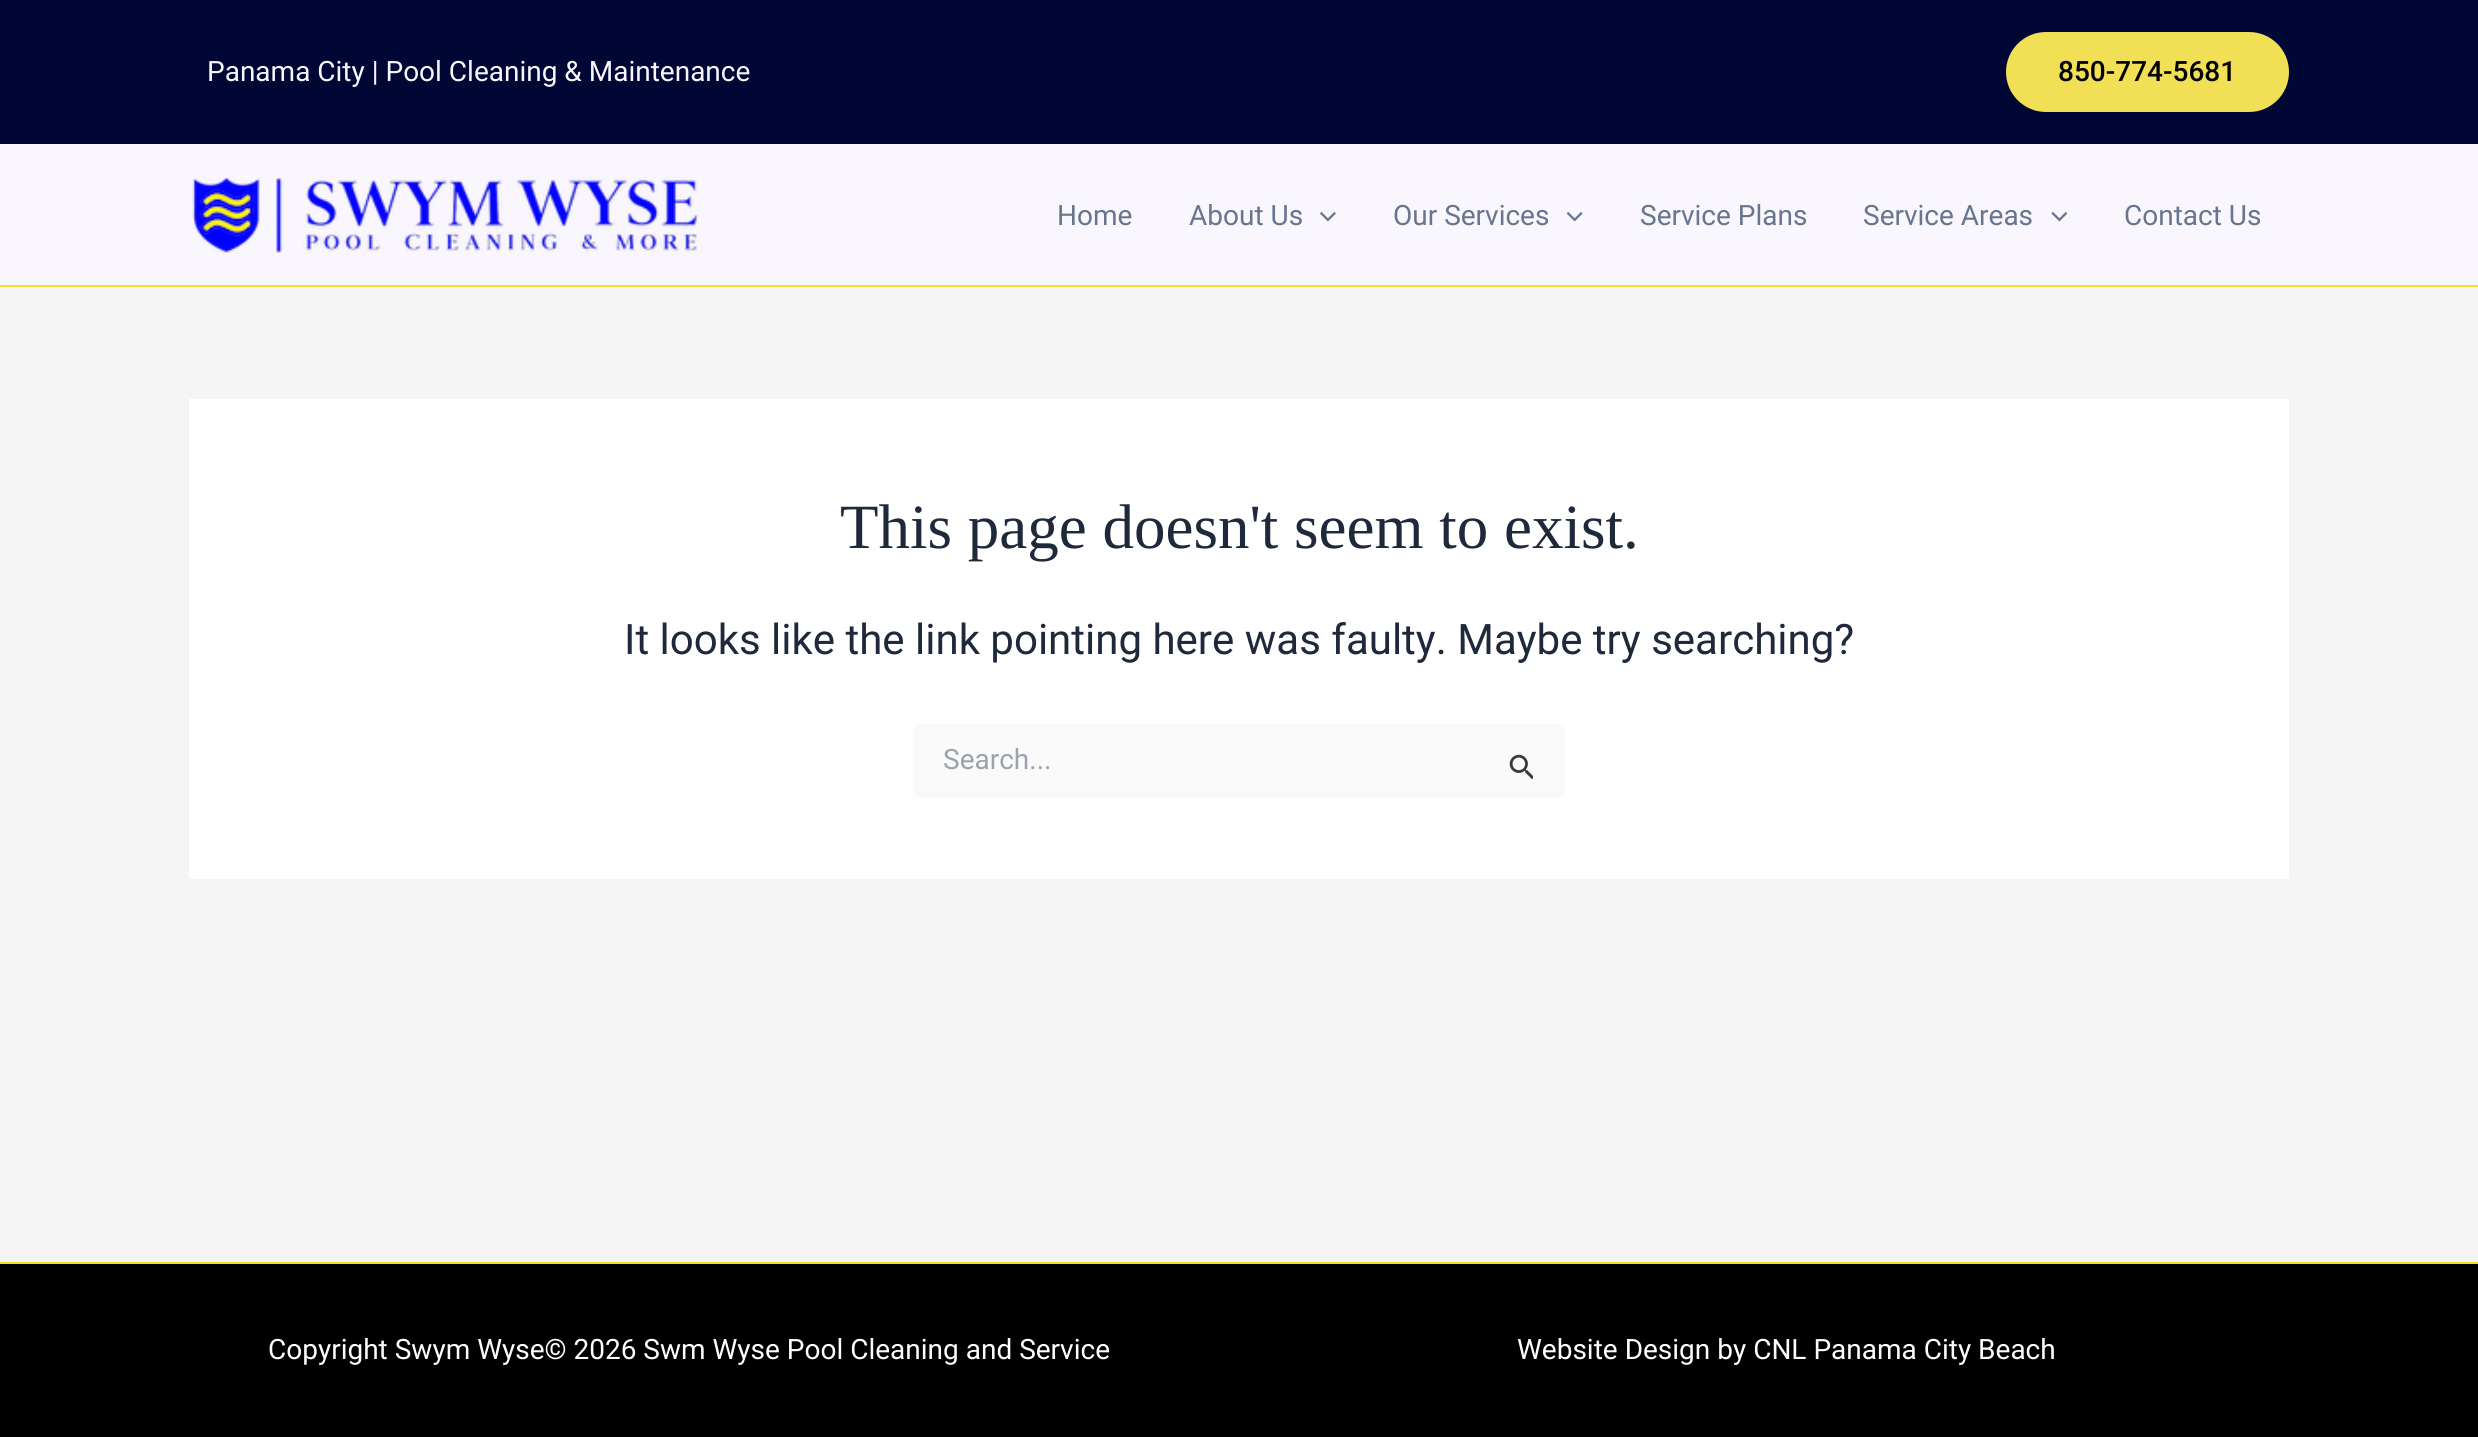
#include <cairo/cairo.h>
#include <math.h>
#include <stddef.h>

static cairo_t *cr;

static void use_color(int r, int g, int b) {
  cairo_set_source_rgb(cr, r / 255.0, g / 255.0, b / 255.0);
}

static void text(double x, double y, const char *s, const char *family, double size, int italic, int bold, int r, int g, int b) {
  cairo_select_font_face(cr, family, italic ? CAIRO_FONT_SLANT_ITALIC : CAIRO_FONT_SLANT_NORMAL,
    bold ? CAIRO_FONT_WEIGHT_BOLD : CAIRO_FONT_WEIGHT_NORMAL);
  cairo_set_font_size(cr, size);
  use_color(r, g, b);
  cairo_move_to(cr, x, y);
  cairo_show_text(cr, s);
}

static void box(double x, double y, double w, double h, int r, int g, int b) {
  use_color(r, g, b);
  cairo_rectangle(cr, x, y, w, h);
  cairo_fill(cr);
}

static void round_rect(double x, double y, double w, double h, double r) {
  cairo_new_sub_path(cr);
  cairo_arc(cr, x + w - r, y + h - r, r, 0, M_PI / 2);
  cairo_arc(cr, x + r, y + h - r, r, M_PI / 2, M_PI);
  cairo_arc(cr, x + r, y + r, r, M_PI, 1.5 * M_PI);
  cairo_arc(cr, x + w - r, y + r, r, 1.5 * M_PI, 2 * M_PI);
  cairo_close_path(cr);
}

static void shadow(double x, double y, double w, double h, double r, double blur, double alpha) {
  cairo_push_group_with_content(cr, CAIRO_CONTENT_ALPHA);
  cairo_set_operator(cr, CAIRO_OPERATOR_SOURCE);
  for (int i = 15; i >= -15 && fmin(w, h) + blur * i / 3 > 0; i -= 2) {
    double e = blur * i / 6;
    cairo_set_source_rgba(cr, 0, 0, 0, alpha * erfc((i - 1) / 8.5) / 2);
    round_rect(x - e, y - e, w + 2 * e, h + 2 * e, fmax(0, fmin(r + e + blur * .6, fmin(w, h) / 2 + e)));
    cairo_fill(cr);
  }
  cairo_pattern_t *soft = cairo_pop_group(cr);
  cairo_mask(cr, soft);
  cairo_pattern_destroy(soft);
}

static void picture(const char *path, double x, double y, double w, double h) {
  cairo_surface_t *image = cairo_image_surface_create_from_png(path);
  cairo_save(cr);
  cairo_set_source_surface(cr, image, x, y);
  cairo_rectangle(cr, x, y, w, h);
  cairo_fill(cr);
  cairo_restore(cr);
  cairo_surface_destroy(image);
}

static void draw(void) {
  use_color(245, 245, 245);
  cairo_paint(cr);
  box(0, 0, 2478, 144, 0, 7, 52);
  use_color(241, 223, 85);
  round_rect(2006, 32, 283, 80, 40);
  cairo_fill(cr);
  box(0, 144, 2478, 141, 249, 246, 254);
  box(0, 285, 2478, 2, 245, 222, 42);
  picture("img_01.png", 192, 177, 507, 76);
  picture("img_02.png", 1320, 211, 16, 11);
  picture("img_03.png", 1566, 211, 17, 11);
  picture("img_04.png", 2051, 211, 16, 11);
  box(189, 399, 2100, 480, 255, 255, 255);
  use_color(0, 0, 0);
  shadow(915, 726, 648, 70, 4, 2, 0.05);
  use_color(250, 250, 250);
  round_rect(916, 726, 646, 68, 3);
  cairo_fill_preserve(cr);
  use_color(249, 246, 254);
  cairo_stroke(cr);
  picture("img_05.png", 1509, 754, 24, 26);
  box(0, 1264, 2478, 173, 0, 0, 0);
  box(0, 1262, 2478, 2, 245, 222, 42);
  text(207, 81, "Panama City | Pool Cleaning & Maintenance", "Roboto", 28, 0, 0, 249, 246, 254);
  text(2058, 81, "850-774-5681", "Roboto Medium", 28, 0, 0, 0, 0, 0);
  text(1057, 225, "Home", "Roboto", 28, 0, 0, 103, 118, 142);
  text(1189, 225, "About Us", "Roboto", 28, 0, 0, 103, 118, 142);
  text(1393, 225, "Our Services", "Roboto", 28, 0, 0, 103, 118, 142);
  text(1640, 225, "Service Plans", "Roboto", 28, 0, 0, 103, 118, 142);
  text(1863, 225, "Service Areas", "Roboto", 28, 0, 0, 103, 118, 142);
  text(2124, 225, "Contact Us", "Roboto", 28, 0, 0, 103, 118, 142);
  text(840, 548, "This page doesn't seem to exist.", "Liberation Serif", 63, 0, 0, 30, 41, 59);
  text(624, 654, "It looks like the link pointing here was faulty. Maybe try searching?", "Roboto", 42, 0, 0, 30, 41, 59);
  text(943, 769, "Search...", "Roboto", 28, 0, 0, 156, 163, 175);
  text(268, 1359, "Copyright Swym Wyse© 2026 Swm Wyse Pool Cleaning and Service", "Roboto", 28, 0, 0, 255, 255, 255);
  text(1517, 1359, "Website Design by CNL Panama City Beach", "Roboto", 28, 0, 0, 255, 255, 255);
}

int main(void) {
  cairo_surface_t *surface = cairo_image_surface_create(CAIRO_FORMAT_RGB24, 2478, 1437);
  cr = cairo_create(surface);
  cairo_font_options_t *options = cairo_font_options_create();
  cairo_font_options_set_hint_metrics(options, CAIRO_HINT_METRICS_OFF);
  cairo_font_options_set_hint_style(options, CAIRO_HINT_STYLE_NONE);
  cairo_set_font_options(cr, options);
  cairo_set_miter_limit(cr, 4);
  draw();
  cairo_surface_write_to_png(surface, "out.png");
  cairo_font_options_destroy(options);
  cairo_destroy(cr);
  cairo_surface_destroy(surface);
  return 0;
}
